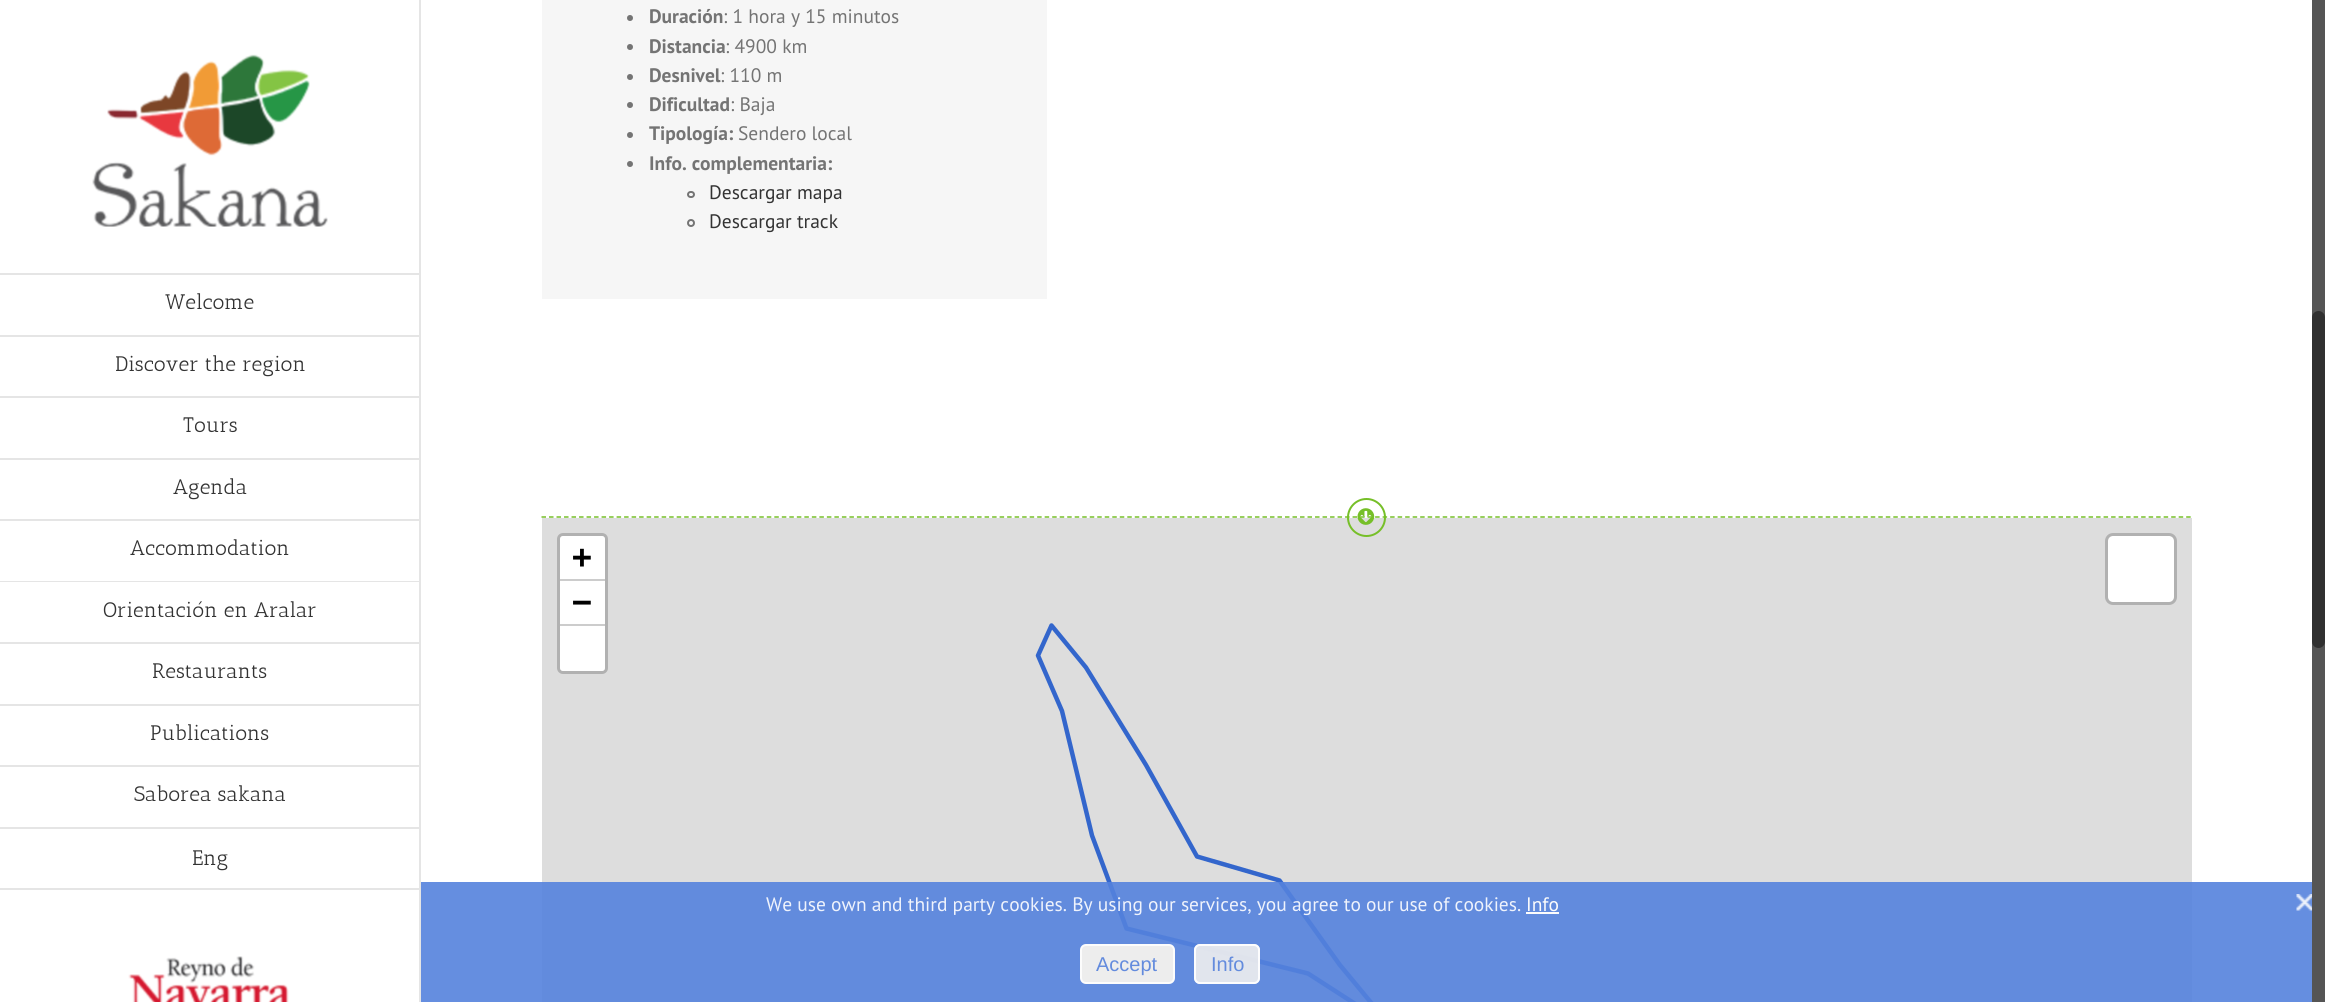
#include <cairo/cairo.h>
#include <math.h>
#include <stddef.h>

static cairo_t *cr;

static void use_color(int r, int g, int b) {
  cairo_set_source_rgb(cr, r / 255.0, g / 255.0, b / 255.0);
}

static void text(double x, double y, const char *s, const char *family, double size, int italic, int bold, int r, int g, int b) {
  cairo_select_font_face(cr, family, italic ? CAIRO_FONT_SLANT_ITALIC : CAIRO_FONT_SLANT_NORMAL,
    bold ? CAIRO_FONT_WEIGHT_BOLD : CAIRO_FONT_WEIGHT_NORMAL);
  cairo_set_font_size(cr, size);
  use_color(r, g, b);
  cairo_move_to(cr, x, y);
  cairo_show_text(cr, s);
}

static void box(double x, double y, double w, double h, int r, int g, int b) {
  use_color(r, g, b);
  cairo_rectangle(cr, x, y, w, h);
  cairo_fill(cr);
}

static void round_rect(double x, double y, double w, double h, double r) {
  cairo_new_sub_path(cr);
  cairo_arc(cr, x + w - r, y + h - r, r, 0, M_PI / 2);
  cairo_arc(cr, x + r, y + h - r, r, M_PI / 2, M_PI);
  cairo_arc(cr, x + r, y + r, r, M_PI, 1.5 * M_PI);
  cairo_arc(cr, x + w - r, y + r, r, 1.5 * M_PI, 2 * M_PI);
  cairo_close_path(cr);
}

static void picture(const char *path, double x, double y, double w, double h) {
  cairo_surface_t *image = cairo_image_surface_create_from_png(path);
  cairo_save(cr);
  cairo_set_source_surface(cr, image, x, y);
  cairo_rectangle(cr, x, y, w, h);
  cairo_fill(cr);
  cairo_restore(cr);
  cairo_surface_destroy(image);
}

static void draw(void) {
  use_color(255, 255, 255);
  cairo_paint(cr);
  picture("img_01.png", 92, 54, 236, 173);
  box(419, 0, 2, 1002, 229, 229, 229);
  box(0, 273, 420, 2, 229, 229, 229);
  box(0, 335, 420, 2, 229, 229, 229);
  box(0, 396, 420, 2, 229, 229, 229);
  box(0, 458, 420, 2, 229, 229, 229);
  box(0, 519, 420, 2, 229, 229, 229);
  box(0, 581, 420, 1, 229, 229, 229);
  box(0, 642, 420, 2, 229, 229, 229);
  box(0, 704, 420, 2, 229, 229, 229);
  box(0, 765, 420, 2, 229, 229, 229);
  box(0, 827, 420, 2, 229, 229, 229);
  box(0, 888, 420, 2, 229, 229, 229);
  picture("img_02.png", 128, 956, 161, 46);
  box(543, 0, 503, 297, 246, 246, 246);
  cairo_new_path(cr);
  cairo_move_to(cr, 1047, -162);
  cairo_line_to(cr, 1047, 298);
  cairo_line_to(cr, 1046, 297);
  cairo_line_to(cr, 1046, -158);
  cairo_close_path(cr);
  cairo_fill(cr);
  box(542, 297, 505, 2, 246, 246, 246);
  cairo_new_path(cr);
  cairo_move_to(cr, 542, 298);
  cairo_line_to(cr, 542, -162);
  cairo_line_to(cr, 543, -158);
  cairo_line_to(cr, 543, 297);
  cairo_close_path(cr);
  cairo_fill(cr);
  use_color(116, 116, 116);
  cairo_arc(cr, 630, 18, 3, 0, 2 * M_PI);
  cairo_fill(cr);
  cairo_arc(cr, 630, 47, 3, 0, 2 * M_PI);
  cairo_fill(cr);
  cairo_arc(cr, 630, 77, 3, 0, 2 * M_PI);
  cairo_fill(cr);
  cairo_arc(cr, 630, 105, 3, 0, 2 * M_PI);
  cairo_fill(cr);
  cairo_arc(cr, 630, 135, 3, 0, 2 * M_PI);
  cairo_fill(cr);
  cairo_arc(cr, 630, 164, 3, 0, 2 * M_PI);
  cairo_fill(cr);
  round_rect(688, 192, 6, 5, 2.5);
  cairo_stroke(cr);
  cairo_arc(cr, 691, 223, 3, 0, 2 * M_PI);
  cairo_stroke(cr);
  cairo_new_path(cr);
  cairo_move_to(cr, 541.5, 517);
  cairo_line_to(cr, 2191.5, 517);
  use_color(118, 191, 40);
  cairo_set_line_width(cr, 1.5);
  cairo_set_dash(cr, (double[]){4.5, 3.01}, 2, 0);
  cairo_stroke(cr);
  box(542, 518, 1650, 484, 221, 221, 221);
  cairo_arc(cr, 1366.5, 517.5, 18.5, 0, 2 * M_PI);
  use_color(118, 191, 40);
  cairo_set_line_width(cr, 2);
  cairo_set_dash(cr, NULL, 0, 0);
  cairo_stroke(cr);
  picture("img_03.png", 1357, 508, 18, 17);
  round_rect(558.5, 534.5, 48, 138, 4.5);
  use_color(177, 177, 177);
  cairo_set_line_width(cr, 3);
  cairo_stroke(cr);
  use_color(255, 255, 255);
  cairo_new_path(cr);
  cairo_move_to(cr, 563, 536);
  cairo_line_to(cr, 602, 536);
  cairo_curve_to(cr, 603.5, 536, 605, 537.5, 605, 539);
  cairo_line_to(cr, 605, 581);
  cairo_line_to(cr, 560, 581);
  cairo_line_to(cr, 560, 539);
  cairo_curve_to(cr, 560, 537.5, 561.5, 536, 563, 536);
  cairo_close_path(cr);
  cairo_fill(cr);
  box(560, 579, 45, 2, 204, 204, 204);
  box(560, 581, 45, 43, 255, 255, 255);
  box(560, 624, 45, 2, 204, 204, 204);
  use_color(255, 255, 255);
  cairo_new_path(cr);
  cairo_move_to(cr, 560, 626);
  cairo_line_to(cr, 605, 626);
  cairo_line_to(cr, 605, 668);
  cairo_curve_to(cr, 605, 669.5, 603.5, 671, 602, 671);
  cairo_line_to(cr, 563, 671);
  cairo_curve_to(cr, 561.5, 671, 560, 669.5, 560, 668);
  cairo_close_path(cr);
  cairo_fill(cr);
  round_rect(2108, 536, 66, 66, 5);
  cairo_fill(cr);
  round_rect(2106.5, 534.5, 69, 69, 6.5);
  cairo_set_source_rgba(cr, 0, 0, 0, 0.2);
  cairo_stroke(cr);
  cairo_new_path(cr);
  cairo_move_to(cr, 1695, 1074);
  cairo_line_to(cr, 1650, 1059);
  cairo_line_to(cr, 1602, 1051.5);
  cairo_line_to(cr, 1552.5, 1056);
  cairo_line_to(cr, 1507.5, 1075.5);
  cairo_line_to(cr, 1455, 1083);
  cairo_line_to(cr, 1417.5, 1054.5);
  cairo_line_to(cr, 1375.5, 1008);
  cairo_line_to(cr, 1339.5, 964.5);
  cairo_line_to(cr, 1279.5, 880.5);
  cairo_line_to(cr, 1197, 856.5);
  cairo_line_to(cr, 1146, 765);
  cairo_line_to(cr, 1086, 667.5);
  cairo_line_to(cr, 1051.5, 625.5);
  cairo_line_to(cr, 1038, 655.5);
  cairo_line_to(cr, 1062, 711);
  cairo_line_to(cr, 1092, 835.5);
  cairo_line_to(cr, 1126.5, 928.5);
  cairo_line_to(cr, 1308, 973.5);
  cairo_line_to(cr, 1375.5, 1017);
  cairo_line_to(cr, 1407, 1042.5);
  cairo_line_to(cr, 1444.5, 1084.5);
  cairo_line_to(cr, 1506, 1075.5);
  cairo_line_to(cr, 1551, 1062);
  cairo_line_to(cr, 1600.5, 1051.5);
  cairo_line_to(cr, 1654.5, 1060.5);
  use_color(51, 102, 204);
  cairo_set_line_width(cr, 4.5);
  cairo_set_line_cap(cr, CAIRO_LINE_CAP_ROUND);
  cairo_set_line_join(cr, CAIRO_LINE_JOIN_ROUND);
  cairo_stroke(cr);
  box(2312, 0, 13, 1002, 85, 85, 85);
  use_color(48, 48, 48);
  round_rect(2312, 311, 13, 337, 6.5);
  cairo_fill(cr);
  cairo_set_source_rgba(cr, 0.333, 0.51, 0.867, 0.9);
  cairo_rectangle(cr, 421, 882, 1891, 120);
  cairo_fill(cr);
  box(1526, 912, 33, 2, 252, 252, 252);
  picture("img_04.png", 2296, 894, 16, 17);
  use_color(237, 237, 237);
  round_rect(1081, 945, 93, 38, 5);
  cairo_fill_preserve(cr);
  use_color(252, 252, 252);
  cairo_set_line_width(cr, 2);
  cairo_set_line_cap(cr, CAIRO_LINE_CAP_BUTT);
  cairo_set_line_join(cr, CAIRO_LINE_JOIN_MITER);
  cairo_stroke(cr);
  cairo_set_source_rgba(cr, 0.937, 0.937, 0.937, 0.9);
  round_rect(1194, 944, 66, 40, 6);
  cairo_fill(cr);
  round_rect(1195, 945, 64, 38, 5);
  cairo_set_source_rgba(cr, 1, 1, 1, 0.9);
  cairo_stroke(cr);
  text(165, 309, "Welcome", "Antic Slab", 21, 0, 0, 51, 51, 51);
  text(115, 371, "Discover the region", "Antic Slab", 21, 0, 0, 51, 51, 51);
  text(183, 432, "Tours", "Antic Slab", 21, 0, 0, 51, 51, 51);
  text(173, 494, "Agenda", "Antic Slab", 21, 0, 0, 51, 51, 51);
  text(130, 555, "Accommodation", "Antic Slab", 21, 0, 0, 51, 51, 51);
  text(103, 617, "Orientación en Aralar", "Antic Slab", 21, 0, 0, 51, 51, 51);
  text(152, 678, "Restaurants", "Antic Slab", 21, 0, 0, 51, 51, 51);
  text(150, 740, "Publications", "Antic Slab", 21, 0, 0, 51, 51, 51);
  text(134, 801, "Saborea sakana", "Antic Slab", 21, 0, 0, 51, 51, 51);
  text(192, 865, "Eng", "Antic Slab", 21, 0, 0, 51, 51, 51);
  text(649, 23, "Duración", "PT Sans", 19.5, 0, 1, 116, 116, 116);
  text(723, 23, ": 1 hora y 15 minutos", "PT Sans", 19.5, 0, 0, 116, 116, 116);
  text(649, 53, "Distancia", "PT Sans", 19.5, 0, 1, 116, 116, 116);
  text(725, 53, ": 4900 km", "PT Sans", 19.5, 0, 0, 116, 116, 116);
  text(649, 82, "Desnivel", "PT Sans", 19.5, 0, 1, 116, 116, 116);
  text(720, 82, ": 110 m", "PT Sans", 19.5, 0, 0, 116, 116, 116);
  text(649, 111, "Dificultad", "PT Sans", 19.5, 0, 1, 116, 116, 116);
  text(730, 111, ": Baja", "PT Sans", 19.5, 0, 0, 116, 116, 116);
  text(649, 140, "Tipología:", "PT Sans", 19.5, 0, 1, 116, 116, 116);
  text(738, 140, "Sendero local", "PT Sans", 19.5, 0, 0, 116, 116, 116);
  text(649, 170, "Info. complementaria:", "PT Sans", 19.5, 0, 1, 116, 116, 116);
  text(709, 199, "Descargar mapa", "PT Sans", 19.5, 0, 0, 51, 51, 51);
  text(709, 228, "Descargar track", "PT Sans", 19.5, 0, 0, 51, 51, 51);
  text(572, 568, "+", "DejaVu Sans Mono", 33, 0, 1, 0, 0, 0);
  text(572, 613, "−", "DejaVu Sans Mono", 33, 0, 1, 0, 0, 0);
  text(766, 911, "We use own and third party cookies. By using our services, you agree to our use of cookies.", "PT Sans", 19.5, 0, 0, 239, 243, 252);
  text(1526, 911, "Info", "PT Sans", 19.5, 0, 0, 252, 252, 252);
  text(1096, 971, "Accept", "Liberation Sans", 20, 0, 0, 99, 139, 221);
  text(1211, 971, "Info", "Liberation Sans", 20, 0, 0, 99, 139, 221);
}

int main(void) {
  cairo_surface_t *surface = cairo_image_surface_create(CAIRO_FORMAT_RGB24, 2325, 1002);
  cr = cairo_create(surface);
  cairo_font_options_t *options = cairo_font_options_create();
  cairo_font_options_set_hint_metrics(options, CAIRO_HINT_METRICS_OFF);
  cairo_font_options_set_hint_style(options, CAIRO_HINT_STYLE_NONE);
  cairo_set_font_options(cr, options);
  cairo_set_miter_limit(cr, 4);
  draw();
  cairo_surface_write_to_png(surface, "out.png");
  cairo_font_options_destroy(options);
  cairo_destroy(cr);
  cairo_surface_destroy(surface);
  return 0;
}
